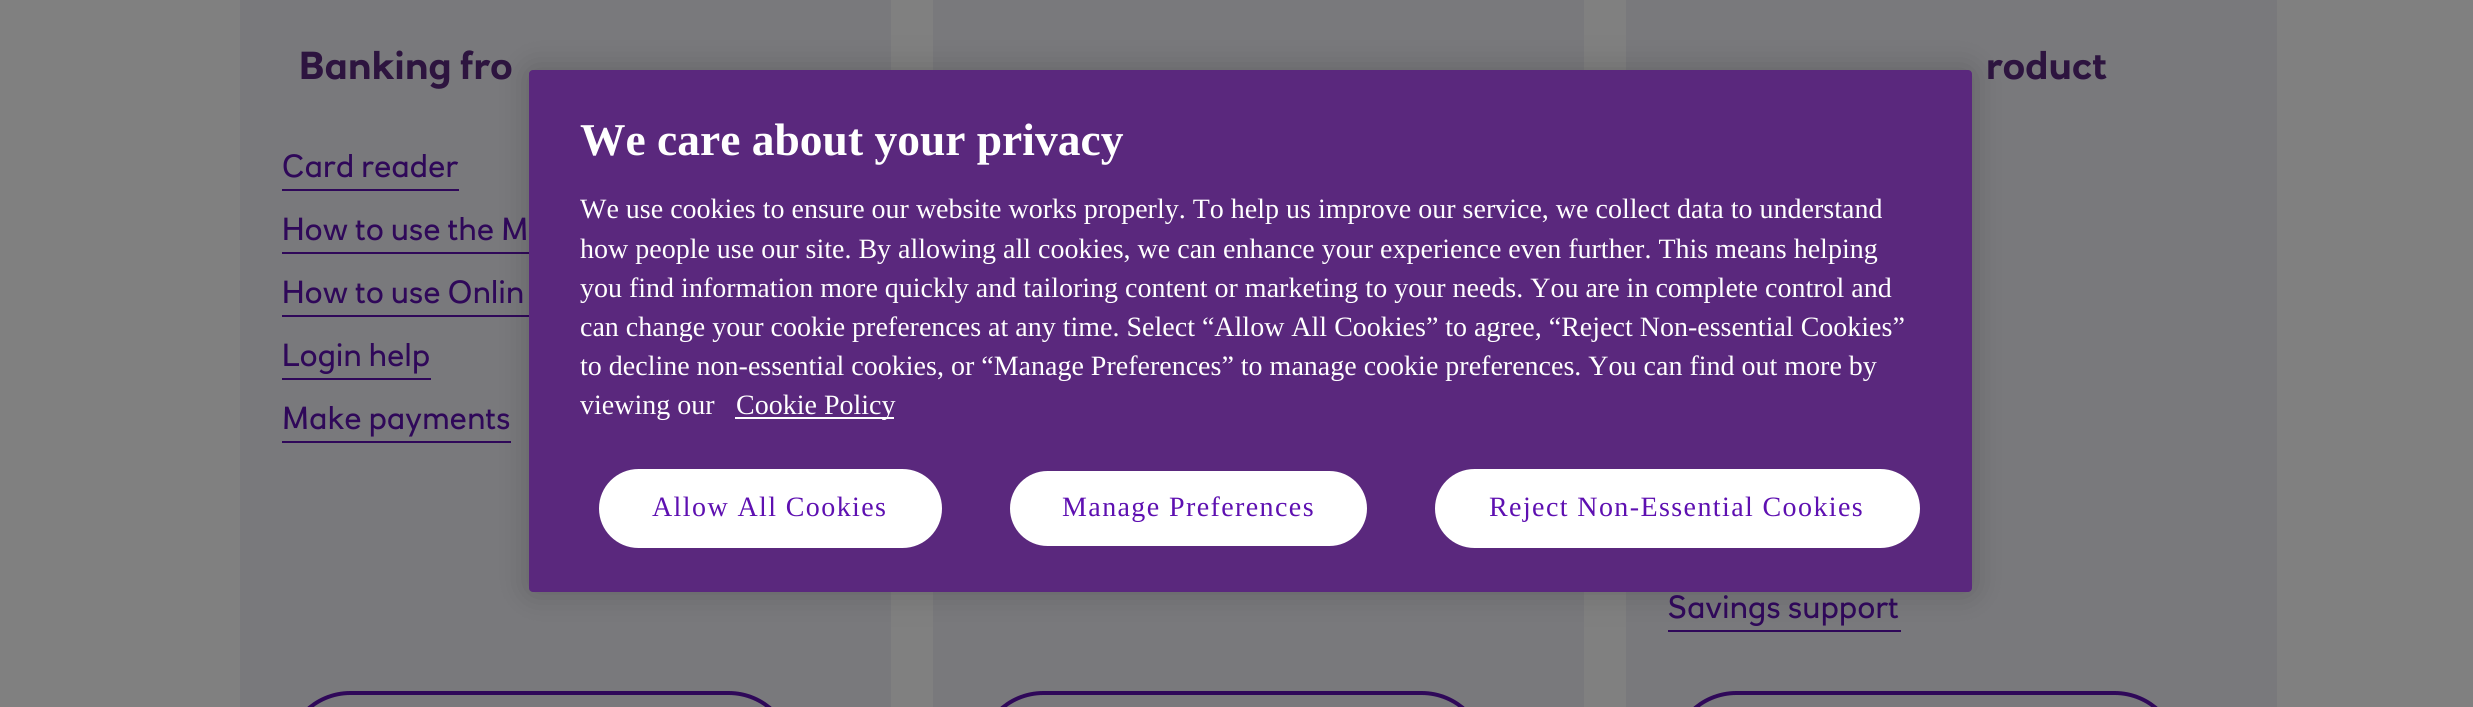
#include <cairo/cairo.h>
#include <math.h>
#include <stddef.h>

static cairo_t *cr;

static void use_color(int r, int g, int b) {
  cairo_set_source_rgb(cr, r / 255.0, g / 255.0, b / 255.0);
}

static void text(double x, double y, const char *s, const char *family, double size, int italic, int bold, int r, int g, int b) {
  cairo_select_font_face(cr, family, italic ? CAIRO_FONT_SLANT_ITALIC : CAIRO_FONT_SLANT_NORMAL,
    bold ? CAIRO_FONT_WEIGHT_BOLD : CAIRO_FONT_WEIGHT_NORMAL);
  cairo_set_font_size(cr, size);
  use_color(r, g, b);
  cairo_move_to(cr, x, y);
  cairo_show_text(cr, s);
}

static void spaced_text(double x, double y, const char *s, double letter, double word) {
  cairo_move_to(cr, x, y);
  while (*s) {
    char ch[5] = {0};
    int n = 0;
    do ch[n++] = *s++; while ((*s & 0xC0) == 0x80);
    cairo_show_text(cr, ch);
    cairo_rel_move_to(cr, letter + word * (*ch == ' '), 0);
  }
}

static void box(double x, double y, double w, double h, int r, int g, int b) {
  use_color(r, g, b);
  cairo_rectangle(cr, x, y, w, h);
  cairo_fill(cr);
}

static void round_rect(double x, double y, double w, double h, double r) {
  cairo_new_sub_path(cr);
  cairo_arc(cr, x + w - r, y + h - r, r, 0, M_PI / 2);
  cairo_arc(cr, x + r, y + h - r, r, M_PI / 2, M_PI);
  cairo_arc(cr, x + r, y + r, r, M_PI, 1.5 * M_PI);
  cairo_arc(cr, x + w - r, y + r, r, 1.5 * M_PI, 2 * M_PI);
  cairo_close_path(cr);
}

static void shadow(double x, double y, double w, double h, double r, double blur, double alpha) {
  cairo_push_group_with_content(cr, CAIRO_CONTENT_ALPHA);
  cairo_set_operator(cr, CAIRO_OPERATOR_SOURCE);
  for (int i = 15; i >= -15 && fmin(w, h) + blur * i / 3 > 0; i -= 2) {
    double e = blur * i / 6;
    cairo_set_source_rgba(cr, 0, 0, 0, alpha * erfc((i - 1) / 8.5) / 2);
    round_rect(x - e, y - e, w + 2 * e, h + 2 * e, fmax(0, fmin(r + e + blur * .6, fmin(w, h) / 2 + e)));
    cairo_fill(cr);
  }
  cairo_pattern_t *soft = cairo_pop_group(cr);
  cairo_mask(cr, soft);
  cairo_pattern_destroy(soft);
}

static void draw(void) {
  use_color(128, 128, 128);
  cairo_paint(cr);
  box(240, 0, 651, 707, 121, 121, 124);
  box(282, 189, 177, 2, 47, 8, 89);
  box(282, 252, 247, 2, 47, 8, 89);
  box(282, 315, 247, 2, 47, 8, 89);
  box(282, 378, 149, 2, 47, 8, 89);
  box(282, 441, 229, 2, 47, 8, 89);
  round_rect(286, 693, 507, 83, 64.5);
  cairo_set_line_width(cr, 4);
  cairo_stroke(cr);
  box(933, 0, 651, 707, 121, 121, 124);
  round_rect(979, 693, 507, 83, 64.5);
  use_color(47, 8, 89);
  cairo_stroke(cr);
  box(1626, 0, 651, 707, 121, 121, 124);
  box(1668, 630, 233, 2, 47, 8, 89);
  round_rect(1672, 693, 507, 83, 64.5);
  cairo_stroke(cr);
  use_color(0, 0, 0);
  shadow(529, 70, 1443, 522, 4, 16, 0.2);
  use_color(90, 40, 125);
  round_rect(529, 70, 1443, 522, 4);
  cairo_fill(cr);
  box(735, 417, 159, 2, 255, 255, 255);
  round_rect(600, 470, 341, 77, 38.5);
  cairo_fill_preserve(cr);
  cairo_set_line_width(cr, 2);
  cairo_stroke(cr);
  round_rect(1009, 470, 359, 77, 38.5);
  cairo_fill_preserve(cr);
  use_color(90, 40, 125);
  cairo_stroke(cr);
  use_color(255, 255, 255);
  round_rect(1436, 470, 483, 77, 38.5);
  cairo_fill_preserve(cr);
  cairo_stroke(cr);
  cairo_select_font_face(cr, "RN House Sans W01", CAIRO_FONT_SLANT_NORMAL, CAIRO_FONT_WEIGHT_BOLD);
  cairo_set_font_size(cr, 38.5);
  use_color(45, 20, 63);
  spaced_text(299, 79, "Banking fro", 0.3, 0);
  cairo_select_font_face(cr, "RN House Sans W01", CAIRO_FONT_SLANT_NORMAL, CAIRO_FONT_WEIGHT_NORMAL);
  cairo_set_font_size(cr, 31.5);
  use_color(47, 8, 89);
  spaced_text(282, 177, "Card reader", 0.3, 0);
  spaced_text(282, 240, "How to use the M", 0.3, 0);
  spaced_text(282, 303, "How to use Onlin", 0.3, 0);
  spaced_text(282, 366, "Login help", 0.3, 0);
  spaced_text(282, 429, "Make payments", 0.3, 0);
  cairo_select_font_face(cr, "RN House Sans W01", CAIRO_FONT_SLANT_NORMAL, CAIRO_FONT_WEIGHT_BOLD);
  cairo_set_font_size(cr, 38.5);
  use_color(45, 20, 63);
  spaced_text(1986, 79, "roduct", 0.3, 0);
  cairo_select_font_face(cr, "RN House Sans W01", CAIRO_FONT_SLANT_NORMAL, CAIRO_FONT_WEIGHT_NORMAL);
  cairo_set_font_size(cr, 31.5);
  use_color(47, 8, 89);
  spaced_text(1668, 618, "Savings support", 0.3, 0);
  text(580, 155, "We care about your privacy", "Liberation Serif", 45.5, 0, 1, 255, 255, 255);
  text(580, 218, "We use cookies to ensure our website works properly. To help us improve our service, we collect data to understand", "Liberation Serif", 28, 0, 0, 255, 255, 255);
  text(580, 258, "how people use our site. By allowing all cookies, we can enhance your experience even further. This means helping", "Liberation Serif", 28, 0, 0, 255, 255, 255);
  text(580, 297, "you find information more quickly and tailoring content or marketing to your needs. You are in complete control and", "Liberation Serif", 28, 0, 0, 255, 255, 255);
  text(580, 336, "can change your cookie preferences at any time. Select “Allow All Cookies” to agree, “Reject Non-essential Cookies”", "Liberation Serif", 28, 0, 0, 255, 255, 255);
  text(580, 375, "to decline non-essential cookies, or “Manage Preferences” to manage cookie preferences. You can find out more by", "Liberation Serif", 28, 0, 0, 255, 255, 255);
  text(580, 414, "viewing our", "Liberation Serif", 28, 0, 0, 255, 255, 255);
  text(736, 414, "Cookie Policy", "Liberation Serif", 28, 0, 0, 255, 255, 255);
  use_color(94, 16, 177);
  spaced_text(652, 516, "Allow All Cookies", 1.4, 0);
  spaced_text(1062, 516, "Manage Preferences", 1.4, 0);
  spaced_text(1489, 516, "Reject Non-Essential Cookies", 1.4, 0);
}

int main(void) {
  cairo_surface_t *surface = cairo_image_surface_create(CAIRO_FORMAT_RGB24, 2473, 707);
  cr = cairo_create(surface);
  cairo_font_options_t *options = cairo_font_options_create();
  cairo_font_options_set_hint_metrics(options, CAIRO_HINT_METRICS_OFF);
  cairo_font_options_set_hint_style(options, CAIRO_HINT_STYLE_NONE);
  cairo_set_font_options(cr, options);
  cairo_set_miter_limit(cr, 4);
  draw();
  cairo_surface_write_to_png(surface, "out.png");
  cairo_font_options_destroy(options);
  cairo_destroy(cr);
  cairo_surface_destroy(surface);
  return 0;
}
